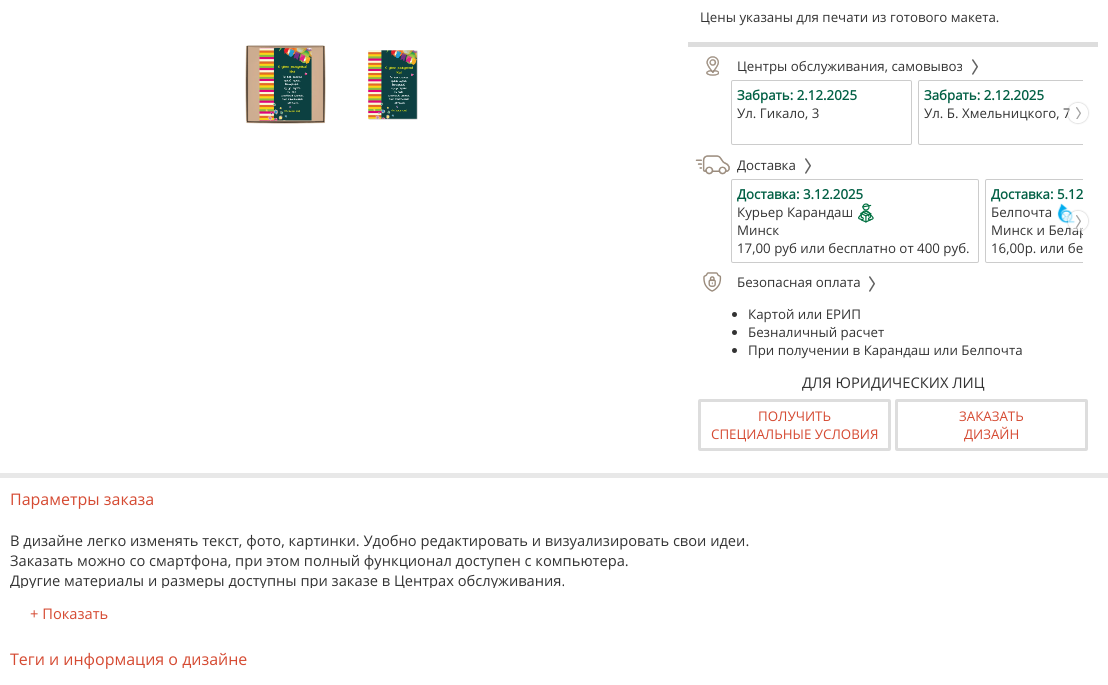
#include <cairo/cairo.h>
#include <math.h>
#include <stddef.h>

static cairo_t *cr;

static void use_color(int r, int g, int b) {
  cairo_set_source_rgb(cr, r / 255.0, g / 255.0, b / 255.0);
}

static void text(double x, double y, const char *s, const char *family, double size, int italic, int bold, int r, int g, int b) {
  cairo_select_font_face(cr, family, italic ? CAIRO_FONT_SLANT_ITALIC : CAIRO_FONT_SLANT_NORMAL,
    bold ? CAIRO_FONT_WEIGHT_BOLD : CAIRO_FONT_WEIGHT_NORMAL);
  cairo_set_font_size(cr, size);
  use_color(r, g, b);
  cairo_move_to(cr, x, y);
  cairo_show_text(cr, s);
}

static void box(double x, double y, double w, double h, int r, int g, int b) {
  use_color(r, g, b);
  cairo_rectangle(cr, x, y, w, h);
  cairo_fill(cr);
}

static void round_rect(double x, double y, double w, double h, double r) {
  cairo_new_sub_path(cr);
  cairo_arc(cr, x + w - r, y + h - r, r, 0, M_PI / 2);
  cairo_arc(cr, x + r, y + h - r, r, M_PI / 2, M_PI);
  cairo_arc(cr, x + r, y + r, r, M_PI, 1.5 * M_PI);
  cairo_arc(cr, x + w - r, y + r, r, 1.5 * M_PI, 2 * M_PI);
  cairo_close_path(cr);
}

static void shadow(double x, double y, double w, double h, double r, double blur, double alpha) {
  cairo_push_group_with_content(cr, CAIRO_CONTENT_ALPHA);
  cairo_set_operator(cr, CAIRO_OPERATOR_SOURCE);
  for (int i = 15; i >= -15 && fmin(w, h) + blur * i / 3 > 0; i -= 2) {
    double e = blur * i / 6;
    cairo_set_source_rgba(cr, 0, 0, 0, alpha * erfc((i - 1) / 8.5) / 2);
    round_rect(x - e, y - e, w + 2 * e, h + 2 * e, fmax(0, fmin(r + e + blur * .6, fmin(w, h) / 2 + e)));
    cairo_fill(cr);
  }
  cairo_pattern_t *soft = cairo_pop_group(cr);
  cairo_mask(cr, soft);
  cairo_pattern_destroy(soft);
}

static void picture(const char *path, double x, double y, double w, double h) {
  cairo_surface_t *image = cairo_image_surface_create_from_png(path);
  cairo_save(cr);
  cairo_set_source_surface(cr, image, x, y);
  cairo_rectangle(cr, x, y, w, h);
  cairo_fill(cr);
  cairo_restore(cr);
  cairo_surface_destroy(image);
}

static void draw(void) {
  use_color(255, 255, 255);
  cairo_paint(cr);
  picture("img_01.png", 245, 45, 81, 79);
  picture("img_02.png", 368, 50, 50, 70);
  box(688, 42, 410, 5, 221, 221, 221);
  picture("img_03.png", 706, 56, 13, 20);
  picture("img_04.png", 972, 59, 6, 16);
  round_rect(731.5, 80.5, 180, 64, 1.5);
  use_color(204, 204, 204);
  cairo_set_line_width(cr, 1);
  cairo_stroke(cr);
  cairo_save(cr);
  cairo_rectangle(cr, 728, 80, 355, 66);
  cairo_clip(cr);
  round_rect(918.5, 80.5, 180, 64, 1.5);
  cairo_stroke(cr);
  cairo_restore(cr);
  cairo_save(cr);
  cairo_set_fill_rule(cr, CAIRO_FILL_RULE_EVEN_ODD);
  cairo_new_path(cr);
  cairo_move_to(cr, 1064, 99);
  cairo_line_to(cr, 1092, 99);
  cairo_line_to(cr, 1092, 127);
  cairo_line_to(cr, 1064, 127);
  cairo_close_path(cr);
  cairo_move_to(cr, 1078, 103);
  cairo_curve_to(cr, 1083.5, 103, 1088, 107.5, 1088, 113);
  cairo_curve_to(cr, 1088, 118.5, 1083.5, 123, 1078, 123);
  cairo_curve_to(cr, 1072.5, 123, 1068, 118.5, 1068, 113);
  cairo_curve_to(cr, 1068, 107.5, 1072.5, 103, 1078, 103);
  cairo_close_path(cr);
  cairo_clip(cr);
  use_color(0, 0, 0);
  shadow(1068, 103, 20, 20, 10, 1, 0.3);
  cairo_restore(cr);
  picture("img_06.png", 695, 155, 35, 20);
  picture("img_04.png", 805, 158, 6, 16);
  round_rect(731.5, 179.5, 247, 83, 1.5);
  cairo_stroke(cr);
  picture("img_07.png", 858, 203, 16, 20);
  cairo_save(cr);
  cairo_rectangle(cr, 728, 179, 355, 84);
  cairo_clip(cr);
  round_rect(985.5, 179.5, 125, 83, 1.5);
  cairo_stroke(cr);
  cairo_restore(cr);
  picture("img_08.png", 1057, 203, 19, 21);
  cairo_save(cr);
  cairo_set_fill_rule(cr, CAIRO_FILL_RULE_EVEN_ODD);
  cairo_new_path(cr);
  cairo_move_to(cr, 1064, 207);
  cairo_line_to(cr, 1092, 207);
  cairo_line_to(cr, 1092, 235);
  cairo_line_to(cr, 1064, 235);
  cairo_close_path(cr);
  cairo_move_to(cr, 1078, 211);
  cairo_curve_to(cr, 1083.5, 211, 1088, 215.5, 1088, 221);
  cairo_curve_to(cr, 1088, 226.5, 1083.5, 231, 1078, 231);
  cairo_curve_to(cr, 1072.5, 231, 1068, 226.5, 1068, 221);
  cairo_curve_to(cr, 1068, 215.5, 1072.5, 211, 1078, 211);
  cairo_close_path(cr);
  cairo_clip(cr);
  use_color(0, 0, 0);
  shadow(1068, 211, 20, 20, 10, 1, 0.3);
  cairo_restore(cr);
  picture("img_10.png", 703, 272, 19, 20);
  picture("img_04.png", 869, 276, 6, 16);
  use_color(51, 51, 51);
  cairo_arc(cr, 734.5, 314.5, 2.5, 0, 2 * M_PI);
  cairo_fill(cr);
  cairo_arc(cr, 734.5, 332.5, 2.5, 0, 2 * M_PI);
  cairo_fill(cr);
  cairo_arc(cr, 734.5, 350.5, 2.5, 0, 2 * M_PI);
  cairo_fill(cr);
  round_rect(699.5, 400.5, 190, 49, 0.5);
  use_color(221, 221, 221);
  cairo_set_line_width(cr, 3);
  cairo_stroke(cr);
  round_rect(896.5, 400.5, 190, 49, 0.5);
  cairo_stroke(cr);
  box(0, 473, 1108, 5, 232, 232, 232);
  text(700, 22, "Цены указаны для печати из готового макета.", "Open Sans", 13.3, 0, 0, 51, 51, 51);
  text(737, 71, "Центры обслуживания, самовывоз", "Open Sans", 13.3, 0, 0, 51, 51, 51);
  text(737, 100, "Забрать: 2.12.2025", "Open Sans", 13.3, 0, 1, 2, 96, 69);
  text(737, 118, "Ул. Гикало, 3", "Open Sans", 13.3, 0, 0, 51, 51, 51);
  text(924, 100, "Забрать: 2.12.2025", "Open Sans", 13.3, 0, 1, 2, 96, 69);
  text(924, 118, "Ул. Б. Хмельницкого, 7", "Open Sans", 13.3, 0, 0, 51, 51, 51);
  cairo_set_source_rgba(cr, 1, 1, 1, 0.6);
  cairo_new_path(cr);
  cairo_arc(cr, 1078, 113, 10, 0, 2 * M_PI);
  cairo_fill(cr);
  picture("img_05.png", 1076, 107, 5, 12);
  text(737, 170, "Доставка", "Open Sans", 13.3, 0, 0, 51, 51, 51);
  text(737, 199, "Доставка: 3.12.2025", "Open Sans", 13.3, 0, 1, 2, 96, 69);
  text(737, 217, "Курьер Карандаш", "Open Sans", 13.3, 0, 0, 51, 51, 51);
  text(737, 235, "Минск", "Open Sans", 13.3, 0, 0, 51, 51, 51);
  text(737, 253, "17,00 руб или бесплатно от 400 руб.", "Open Sans", 13.3, 0, 0, 51, 51, 51);
  text(991, 199, "Доставка: 5.12", "Open Sans", 13.3, 0, 1, 2, 96, 69);
  text(991, 217, "Белпочта", "Open Sans", 13.3, 0, 0, 51, 51, 51);
  cairo_save(cr);
  cairo_rectangle(cr, 728, 179, 355, 84);
  cairo_clip(cr);
  text(991, 235, "Минск и Белар", "Open Sans", 13.3, 0, 0, 51, 51, 51);
  cairo_restore(cr);
  text(991, 253, "16,00р. или бе", "Open Sans", 13.3, 0, 0, 51, 51, 51);
  cairo_set_source_rgba(cr, 1, 1, 1, 0.6);
  cairo_new_path(cr);
  cairo_arc(cr, 1078, 221, 10, 0, 2 * M_PI);
  cairo_fill(cr);
  picture("img_09.png", 1076, 215, 5, 13);
  text(737, 287, "Безопасная оплата", "Open Sans", 13.3, 0, 0, 51, 51, 51);
  text(748, 319, "Картой или ЕРИП", "Open Sans", 13.3, 0, 0, 51, 51, 51);
  text(748, 337, "Безналичный расчет", "Open Sans", 13.3, 0, 0, 51, 51, 51);
  text(748, 355, "При получении в Карандаш или Белпочта", "Open Sans", 13.3, 0, 0, 51, 51, 51);
  text(802, 388, "ДЛЯ ЮРИДИЧЕСКИХ ЛИЦ", "Open Sans", 14.67, 0, 0, 51, 51, 51);
  text(758, 421, "ПОЛУЧИТЬ", "Open Sans", 13.3, 0, 0, 213, 74, 50);
  text(711, 439, "СПЕЦИАЛЬНЫЕ УСЛОВИЯ", "Open Sans", 13.3, 0, 0, 213, 74, 50);
  text(959, 421, "ЗАКАЗАТЬ", "Open Sans", 13.3, 0, 0, 213, 74, 50);
  text(964, 439, "ДИЗАЙН", "Open Sans", 13.3, 0, 0, 213, 74, 50);
  text(10, 505, "Параметры заказа", "Open Sans", 16, 0, 0, 213, 74, 50);
  text(10, 546, "В дизайне легко изменять текст, фото, картинки. Удобно редактировать и визуализировать свои идеи.", "Open Sans", 14.67, 0, 0, 51, 51, 51);
  text(10, 566, "Заказать можно со смартфона, при этом полный функционал доступен с компьютера.", "Open Sans", 14.67, 0, 0, 51, 51, 51);
  cairo_save(cr);
  cairo_rectangle(cr, 10, 530, 1088, 58);
  cairo_clip(cr);
  text(10, 586, "Другие материалы и размеры доступны при заказе в Центрах обслуживания.", "Open Sans", 14.67, 0, 0, 51, 51, 51);
  cairo_restore(cr);
  text(30, 619, "+ Показать", "Open Sans", 14.67, 0, 0, 213, 74, 50);
  text(10, 665, "Теги и информация о дизайне", "Open Sans", 16, 0, 0, 213, 74, 50);
}

int main(void) {
  cairo_surface_t *surface = cairo_image_surface_create(CAIRO_FORMAT_RGB24, 1108, 685);
  cr = cairo_create(surface);
  cairo_font_options_t *options = cairo_font_options_create();
  cairo_font_options_set_hint_metrics(options, CAIRO_HINT_METRICS_OFF);
  cairo_font_options_set_hint_style(options, CAIRO_HINT_STYLE_NONE);
  cairo_set_font_options(cr, options);
  cairo_set_miter_limit(cr, 4);
  draw();
  cairo_surface_write_to_png(surface, "out.png");
  cairo_font_options_destroy(options);
  cairo_destroy(cr);
  cairo_surface_destroy(surface);
  return 0;
}
